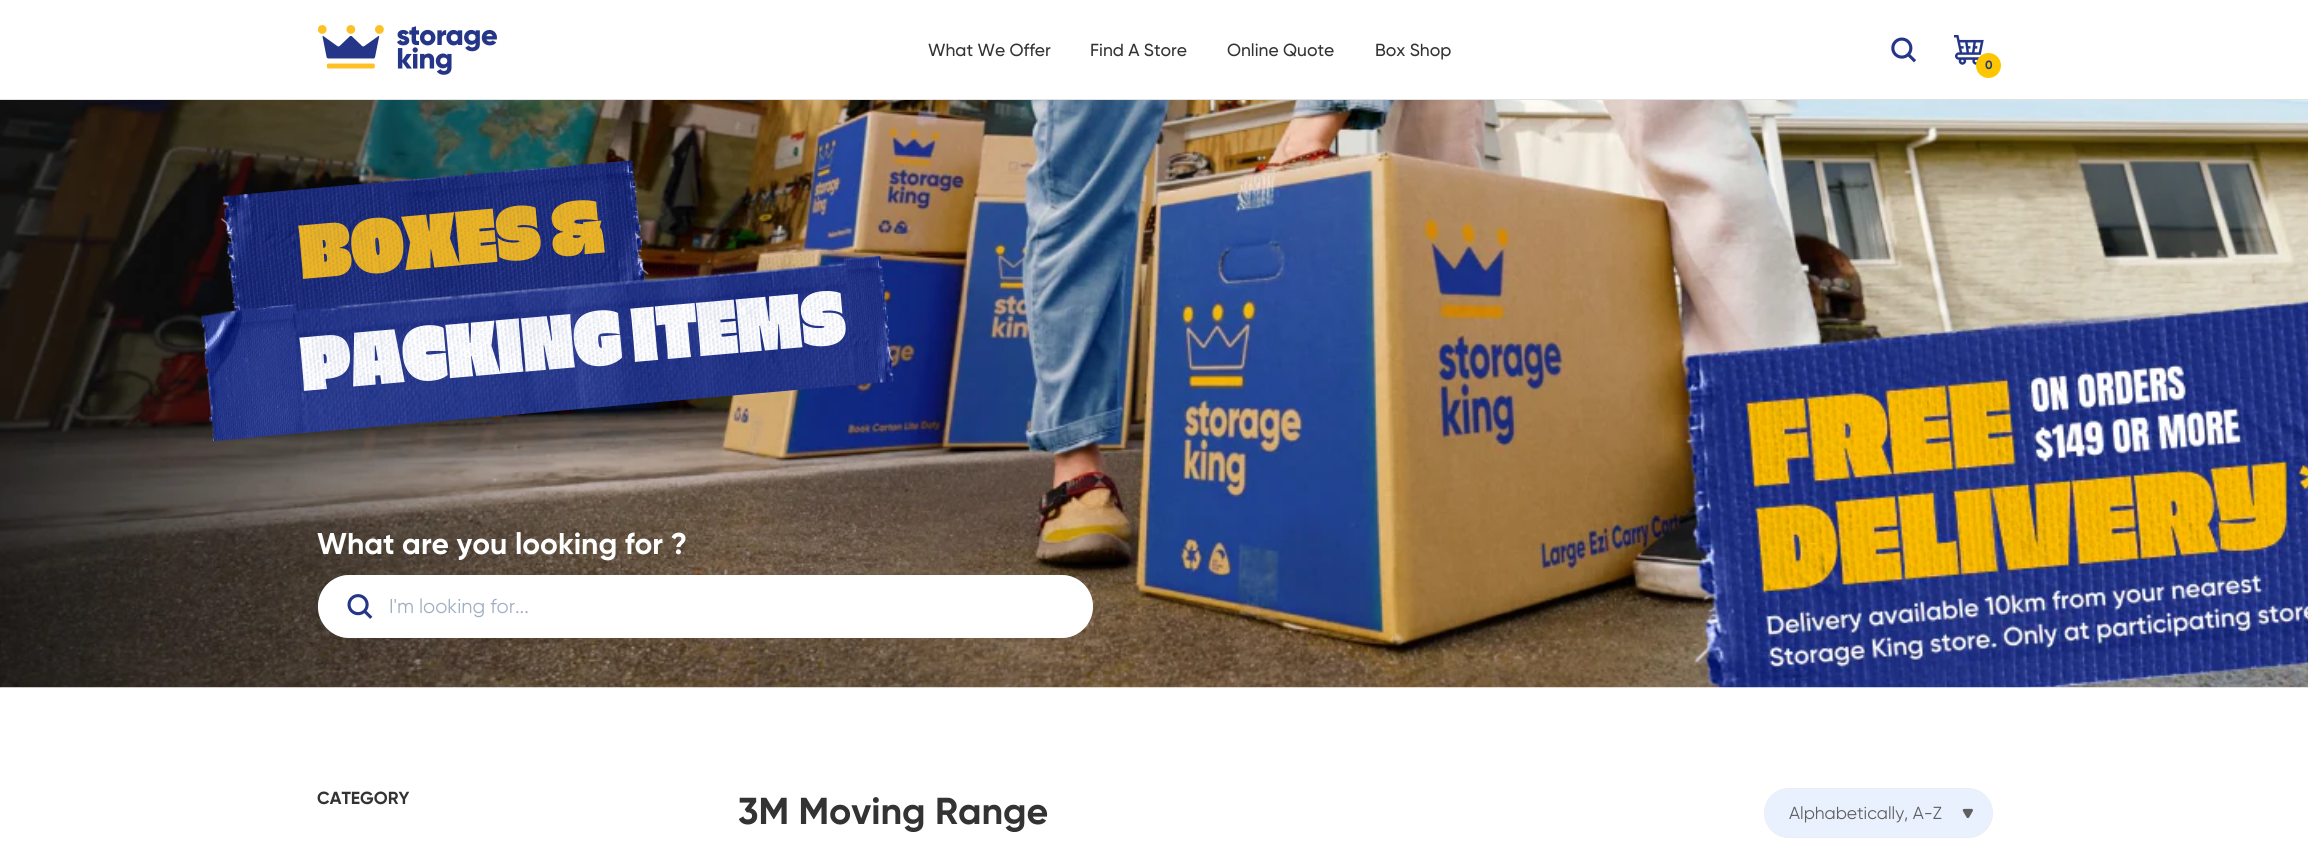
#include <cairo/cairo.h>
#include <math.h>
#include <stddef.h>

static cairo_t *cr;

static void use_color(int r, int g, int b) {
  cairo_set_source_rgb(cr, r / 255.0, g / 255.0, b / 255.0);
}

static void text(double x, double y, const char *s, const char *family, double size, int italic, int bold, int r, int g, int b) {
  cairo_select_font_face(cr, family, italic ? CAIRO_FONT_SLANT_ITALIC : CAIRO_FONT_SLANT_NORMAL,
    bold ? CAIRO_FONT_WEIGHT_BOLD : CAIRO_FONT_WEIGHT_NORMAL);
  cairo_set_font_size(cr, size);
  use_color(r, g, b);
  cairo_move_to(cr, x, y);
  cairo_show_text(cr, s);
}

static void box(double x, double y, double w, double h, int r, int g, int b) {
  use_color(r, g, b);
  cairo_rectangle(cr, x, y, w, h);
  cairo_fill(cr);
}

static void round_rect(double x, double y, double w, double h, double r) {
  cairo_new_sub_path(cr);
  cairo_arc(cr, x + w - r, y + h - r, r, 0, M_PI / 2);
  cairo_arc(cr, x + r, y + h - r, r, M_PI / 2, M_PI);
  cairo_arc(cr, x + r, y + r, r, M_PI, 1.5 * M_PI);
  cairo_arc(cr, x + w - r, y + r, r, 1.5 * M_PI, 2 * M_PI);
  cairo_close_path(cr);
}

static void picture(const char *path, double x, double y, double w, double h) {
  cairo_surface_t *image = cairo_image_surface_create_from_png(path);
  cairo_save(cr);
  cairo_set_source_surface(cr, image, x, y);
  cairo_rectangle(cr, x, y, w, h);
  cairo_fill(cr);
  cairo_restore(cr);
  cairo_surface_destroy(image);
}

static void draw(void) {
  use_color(255, 255, 255);
  cairo_paint(cr);
  picture("img_01.png", 318, 25, 179, 50);
  picture("img_02.png", 1891, 37, 25, 26);
  picture("img_03.png", 1954, 35, 30, 30);
  use_color(253, 198, 0);
  cairo_arc(cr, 1988.5, 65.5, 12.5, 0, 2 * M_PI);
  cairo_fill(cr);
  box(0, 99, 2308, 1, 226, 226, 226);
  picture("img_04.png", 0, 100, 2308, 588);
  picture("img_05.png", 221, 190, 81, 124);
  picture("img_08.png", 603, 160, 46, 126);
  picture("img_09.png", 201, 304, 105, 137);
  picture("img_06.png", 291, 162, 325, 152);
  picture("img_12.png", 843, 255, 51, 130);
  use_color(255, 255, 255);
  round_rect(318, 575, 775, 63, 31.5);
  cairo_fill(cr);
  round_rect(318.5, 575.5, 774, 62, 31);
  cairo_set_source_rgba(cr, 1, 1, 1, 0.5);
  cairo_set_line_width(cr, 1);
  cairo_stroke(cr);
  picture("img_13.png", 347, 594, 26, 25);
  use_color(233, 241, 255);
  round_rect(1764.5, 788.5, 228, 49, 24.5);
  cairo_fill_preserve(cr);
  use_color(235, 237, 245);
  cairo_stroke(cr);
  picture("img_14.png", 1962, 808, 11, 11);
  text(928, 56, "What We Offer", "Gilroy Medium", 17.5, 0, 0, 51, 51, 51);
  text(1090, 56, "Find A Store", "Gilroy Medium", 17.5, 0, 0, 51, 51, 51);
  text(1227, 56, "Online Quote", "Gilroy Medium", 17.5, 0, 0, 51, 51, 51);
  text(1375, 56, "Box Shop", "Gilroy Medium", 17.5, 0, 0, 51, 51, 51);
  text(1985, 69, "0", "Gilroy", 12, 0, 1, 37, 54, 136);
  cairo_save(cr);
  cairo_translate(cr, 302, 279);
  cairo_rotate(cr, -5 * M_PI / 180);
  text(0, 0, "BOXES &", "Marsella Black", 74.25, 0, 0, 238, 181, 35);
  cairo_restore(cr);
  picture("img_07.png", 298, 169, 306, 144);
  picture("img_10.png", 293, 262, 564, 171);
  cairo_save(cr);
  cairo_translate(cr, 303, 391);
  cairo_rotate(cr, -5 * M_PI / 180);
  text(0, 0, "PACKING ITEMS", "Marsella Black", 74.25, 0, 0, 255, 255, 255);
  cairo_restore(cr);
  picture("img_11.png", 299, 250, 547, 145);
  text(317, 554, "What are you looking for ?", "Gilroy", 30, 0, 1, 255, 255, 255);
  text(389, 613, "I'm looking for...", "Gilroy", 20, 0, 0, 160, 174, 192);
  text(317, 804, "CATEGORY", "Gilroy", 17.5, 0, 1, 51, 51, 51);
  text(738, 824, "3M Moving Range", "Gilroy", 37.5, 0, 1, 51, 51, 51);
  text(1789, 819, "Alphabetically, A-Z", "Gilroy", 17.5, 0, 0, 96, 96, 96);
}

int main(void) {
  cairo_surface_t *surface = cairo_image_surface_create(CAIRO_FORMAT_RGB24, 2308, 847);
  cr = cairo_create(surface);
  cairo_font_options_t *options = cairo_font_options_create();
  cairo_font_options_set_hint_metrics(options, CAIRO_HINT_METRICS_OFF);
  cairo_font_options_set_hint_style(options, CAIRO_HINT_STYLE_NONE);
  cairo_set_font_options(cr, options);
  cairo_set_miter_limit(cr, 4);
  draw();
  cairo_surface_write_to_png(surface, "out.png");
  cairo_font_options_destroy(options);
  cairo_destroy(cr);
  cairo_surface_destroy(surface);
  return 0;
}
